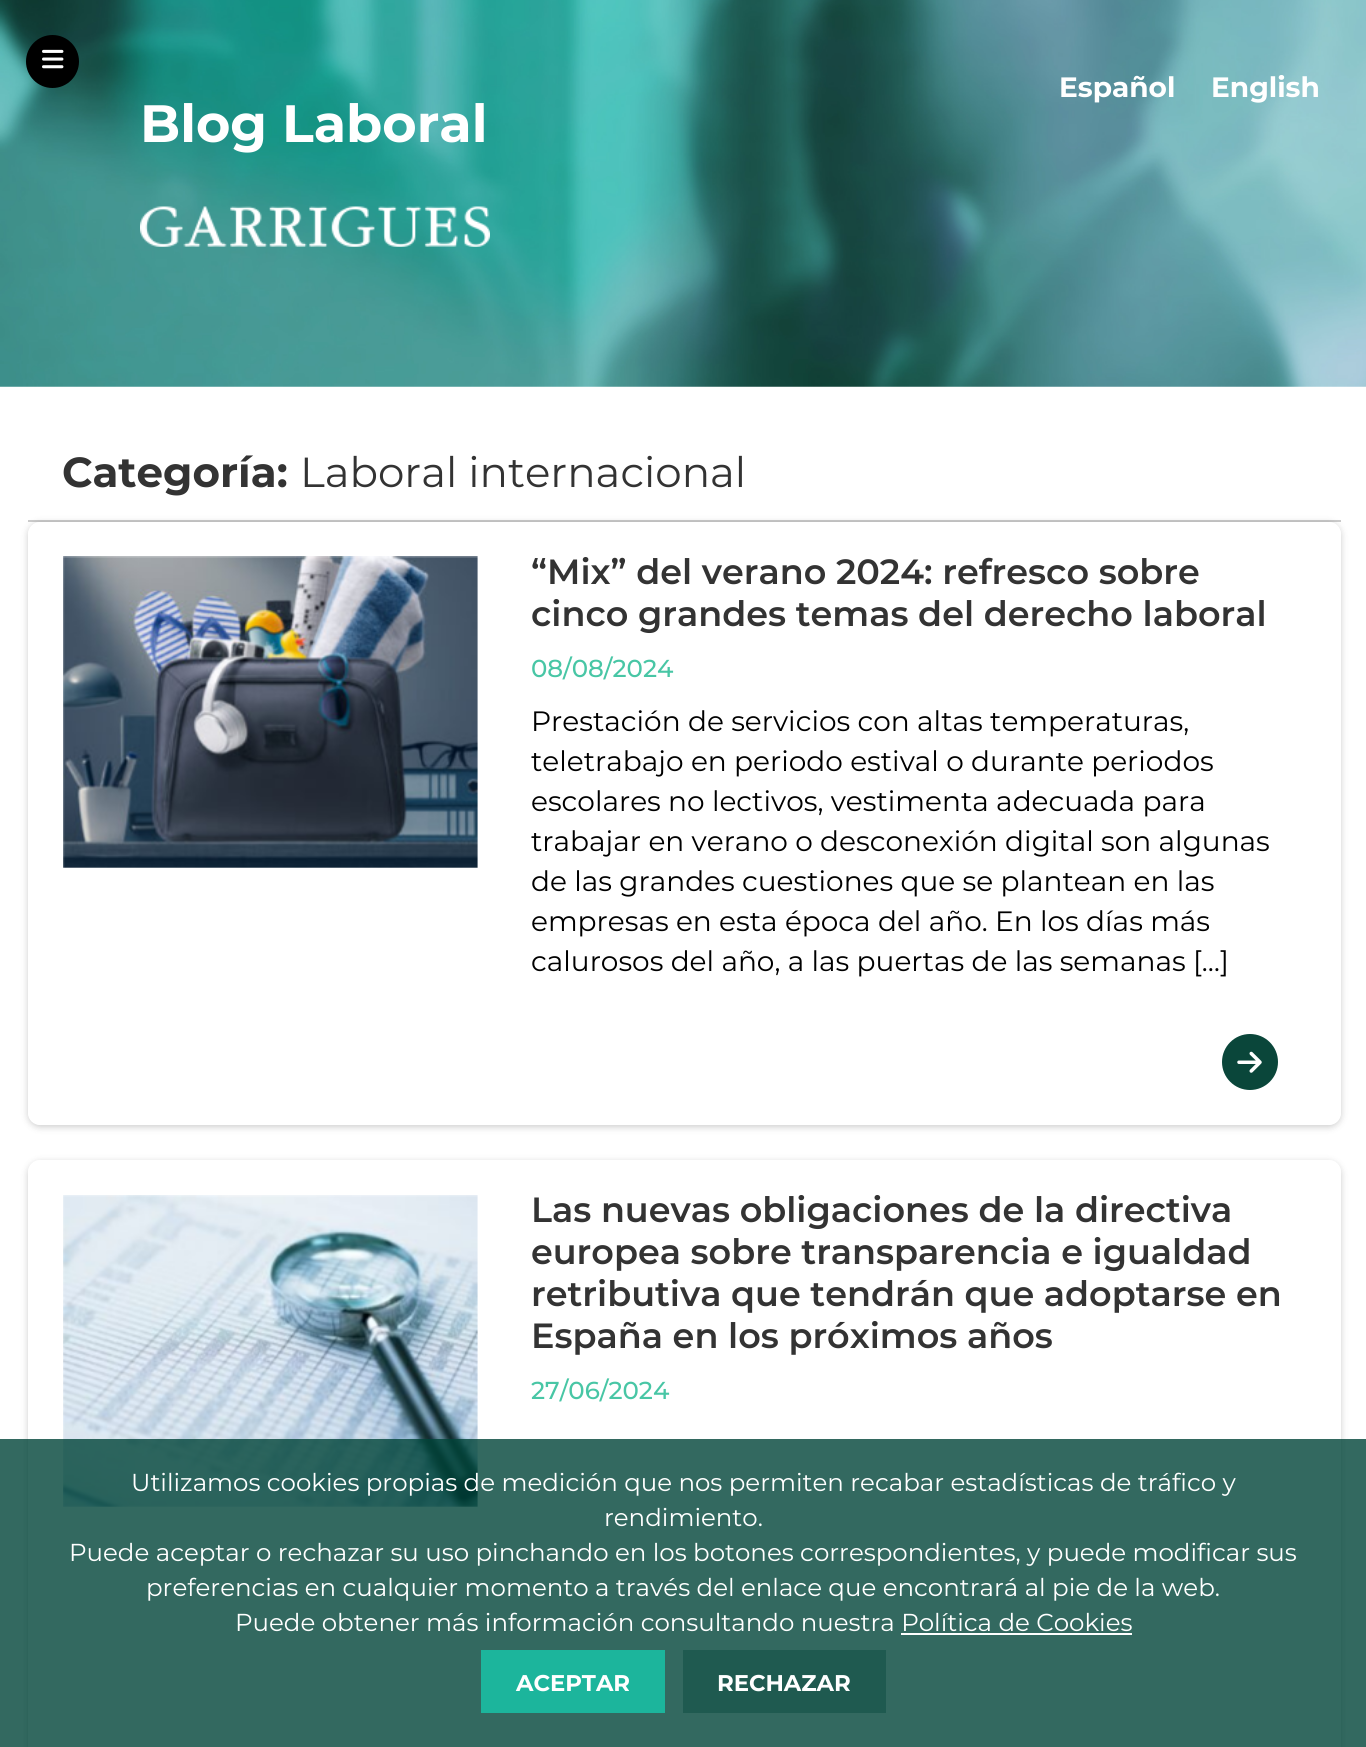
#include <cairo/cairo.h>
#include <math.h>
#include <stddef.h>

static cairo_t *cr;

static void use_color(int r, int g, int b) {
  cairo_set_source_rgb(cr, r / 255.0, g / 255.0, b / 255.0);
}

static void text(double x, double y, const char *s, const char *family, double size, int italic, int bold, int r, int g, int b) {
  cairo_select_font_face(cr, family, italic ? CAIRO_FONT_SLANT_ITALIC : CAIRO_FONT_SLANT_NORMAL,
    bold ? CAIRO_FONT_WEIGHT_BOLD : CAIRO_FONT_WEIGHT_NORMAL);
  cairo_set_font_size(cr, size);
  use_color(r, g, b);
  cairo_move_to(cr, x, y);
  cairo_show_text(cr, s);
}

static void box(double x, double y, double w, double h, int r, int g, int b) {
  use_color(r, g, b);
  cairo_rectangle(cr, x, y, w, h);
  cairo_fill(cr);
}

static void round_rect(double x, double y, double w, double h, double r) {
  cairo_new_sub_path(cr);
  cairo_arc(cr, x + w - r, y + h - r, r, 0, M_PI / 2);
  cairo_arc(cr, x + r, y + h - r, r, M_PI / 2, M_PI);
  cairo_arc(cr, x + r, y + r, r, M_PI, 1.5 * M_PI);
  cairo_arc(cr, x + w - r, y + r, r, 1.5 * M_PI, 2 * M_PI);
  cairo_close_path(cr);
}

static void shadow(double x, double y, double w, double h, double r, double blur, double alpha) {
  cairo_push_group_with_content(cr, CAIRO_CONTENT_ALPHA);
  cairo_set_operator(cr, CAIRO_OPERATOR_SOURCE);
  for (int i = 15; i >= -15 && fmin(w, h) + blur * i / 3 > 0; i -= 2) {
    double e = blur * i / 6;
    cairo_set_source_rgba(cr, 0, 0, 0, alpha * erfc((i - 1) / 8.5) / 2);
    round_rect(x - e, y - e, w + 2 * e, h + 2 * e, fmax(0, fmin(r + e + blur * .6, fmin(w, h) / 2 + e)));
    cairo_fill(cr);
  }
  cairo_pattern_t *soft = cairo_pop_group(cr);
  cairo_mask(cr, soft);
  cairo_pattern_destroy(soft);
}

static void picture(const char *path, double x, double y, double w, double h) {
  cairo_surface_t *image = cairo_image_surface_create_from_png(path);
  cairo_save(cr);
  cairo_set_source_surface(cr, image, x, y);
  cairo_rectangle(cr, x, y, w, h);
  cairo_fill(cr);
  cairo_restore(cr);
  cairo_surface_destroy(image);
}

static void draw(void) {
  use_color(255, 255, 255);
  cairo_paint(cr);
  picture("img_01.png", 0, 0, 1366, 387);
  use_color(0, 0, 0);
  cairo_arc(cr, 52.5, 61.5, 26.5, 0, 2 * M_PI);
  cairo_fill(cr);
  picture("img_02.png", 42, 49, 22, 20);
  picture("img_03.png", 140, 206, 350, 41);
  box(28, 520, 1313, 2, 204, 204, 204);
  cairo_save(cr);
  cairo_set_fill_rule(cr, CAIRO_FILL_RULE_EVEN_ODD);
  cairo_new_path(cr);
  cairo_move_to(cr, 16, 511);
  cairo_line_to(cr, 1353, 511);
  cairo_line_to(cr, 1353, 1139);
  cairo_line_to(cr, 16, 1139);
  cairo_close_path(cr);
  cairo_move_to(cr, 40, 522);
  cairo_line_to(cr, 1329, 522);
  cairo_curve_to(cr, 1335.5, 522, 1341, 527.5, 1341, 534);
  cairo_line_to(cr, 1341, 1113);
  cairo_curve_to(cr, 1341, 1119.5, 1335.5, 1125, 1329, 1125);
  cairo_line_to(cr, 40, 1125);
  cairo_curve_to(cr, 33.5, 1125, 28, 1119.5, 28, 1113);
  cairo_line_to(cr, 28, 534);
  cairo_curve_to(cr, 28, 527.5, 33.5, 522, 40, 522);
  cairo_close_path(cr);
  cairo_clip(cr);
  use_color(0, 0, 0);
  shadow(28, 523, 1313, 604, 12, 3.5, 0.2);
  cairo_restore(cr);
  picture("img_04.png", 63, 556, 415, 312);
  use_color(10, 70, 58);
  cairo_arc(cr, 1250, 1062, 28, 0, 2 * M_PI);
  cairo_fill(cr);
  picture("img_05.png", 1237, 1051, 25, 22);
  cairo_save(cr);
  cairo_set_fill_rule(cr, CAIRO_FILL_RULE_EVEN_ODD);
  cairo_new_path(cr);
  cairo_move_to(cr, 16, 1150);
  cairo_line_to(cr, 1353, 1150);
  cairo_line_to(cr, 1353, 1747);
  cairo_line_to(cr, 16, 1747);
  cairo_close_path(cr);
  cairo_move_to(cr, 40, 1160);
  cairo_line_to(cr, 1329, 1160);
  cairo_curve_to(cr, 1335.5, 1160, 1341, 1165.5, 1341, 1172);
  cairo_line_to(cr, 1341, 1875);
  cairo_curve_to(cr, 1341, 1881.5, 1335.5, 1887, 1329, 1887);
  cairo_line_to(cr, 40, 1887);
  cairo_curve_to(cr, 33.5, 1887, 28, 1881.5, 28, 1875);
  cairo_line_to(cr, 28, 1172);
  cairo_curve_to(cr, 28, 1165.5, 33.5, 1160, 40, 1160);
  cairo_close_path(cr);
  cairo_clip(cr);
  use_color(0, 0, 0);
  shadow(28, 1162, 1313, 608, 12, 3.5, 0.2);
  cairo_restore(cr);
  picture("img_06.png", 63, 1195, 415, 312);
  cairo_set_source_rgba(cr, 0, 0.267, 0.22, 0.8);
  cairo_rectangle(cr, 0, 1439, 1366, 308);
  cairo_fill(cr);
  box(901, 1633, 231, 2, 255, 255, 255);
  box(481, 1650, 184, 63, 28, 181, 156);
  cairo_set_source_rgba(cr, 0, 0.267, 0.22, 0.4);
  cairo_rectangle(cr, 683, 1650, 203, 63);
  cairo_fill(cr);
  text(1059, 97, "Español", "Montserrat", 28, 0, 1, 255, 255, 255);
  text(1211, 97, "English", "Montserrat", 28, 0, 1, 255, 255, 255);
  text(140, 142, "Blog Laboral", "Montserrat", 52.5, 0, 1, 255, 255, 255);
  text(62, 487, "Categoría:", "Montserrat", 42, 0, 1, 51, 51, 51);
  text(300, 487, "Laboral internacional", "Montserrat", 42, 0, 0, 51, 51, 51);
  text(531, 584, "“Mix” del verano 2024: refresco sobre", "Montserrat SemiBold", 35, 0, 0, 51, 51, 51);
  text(531, 626, "cinco grandes temas del derecho laboral", "Montserrat SemiBold", 35, 0, 0, 51, 51, 51);
  text(531, 677, "08/08/2024", "Montserrat Medium", 24.5, 0, 0, 72, 198, 165);
  text(531, 731, "Prestación de servicios con altas temperaturas,", "Montserrat", 28, 0, 0, 0, 0, 0);
  text(531, 771, "teletrabajo en periodo estival o durante periodos", "Montserrat", 28, 0, 0, 0, 0, 0);
  text(531, 811, "escolares no lectivos, vestimenta adecuada para", "Montserrat", 28, 0, 0, 0, 0, 0);
  text(531, 851, "trabajar en verano o desconexión digital son algunas", "Montserrat", 28, 0, 0, 0, 0, 0);
  text(531, 891, "de las grandes cuestiones que se plantean en las", "Montserrat", 28, 0, 0, 0, 0, 0);
  text(531, 931, "empresas en esta época del año. En los días más", "Montserrat", 28, 0, 0, 0, 0, 0);
  text(531, 971, "calurosos del año, a las puertas de las semanas […]", "Montserrat", 28, 0, 0, 0, 0, 0);
  text(531, 1222, "Las nuevas obligaciones de la directiva", "Montserrat SemiBold", 35, 0, 0, 51, 51, 51);
  text(531, 1264, "europea sobre transparencia e igualdad", "Montserrat SemiBold", 35, 0, 0, 51, 51, 51);
  text(531, 1306, "retributiva que tendrán que adoptarse en", "Montserrat SemiBold", 35, 0, 0, 51, 51, 51);
  text(531, 1348, "España en los próximos años", "Montserrat SemiBold", 35, 0, 0, 51, 51, 51);
  text(531, 1399, "27/06/2024", "Montserrat Medium", 24.5, 0, 0, 72, 198, 165);
  text(131, 1491, "Utilizamos cookies propias de medición que nos permiten recabar estadísticas de tráfico y", "Montserrat", 24.5, 0, 0, 255, 255, 255);
  text(604, 1526, "rendimiento.", "Montserrat", 24.5, 0, 0, 255, 255, 255);
  text(69, 1561, "Puede aceptar o rechazar su uso pinchando en los botones correspondientes, y puede modificar sus", "Montserrat", 24.5, 0, 0, 255, 255, 255);
  text(146, 1596, "preferencias en cualquier momento a través del enlace que encontrará al pie de la web.", "Montserrat", 24.5, 0, 0, 255, 255, 255);
  text(235, 1631, "Puede obtener más información consultando nuestra Política de Cookies", "Montserrat", 24.5, 0, 0, 255, 255, 255);
  text(516, 1691, "ACEPTAR", "Montserrat", 22.75, 0, 1, 255, 255, 255);
  text(717, 1691, "RECHAZAR", "Montserrat", 22.75, 0, 1, 255, 255, 255);
}

int main(void) {
  cairo_surface_t *surface = cairo_image_surface_create(CAIRO_FORMAT_RGB24, 1366, 1747);
  cr = cairo_create(surface);
  cairo_font_options_t *options = cairo_font_options_create();
  cairo_font_options_set_hint_metrics(options, CAIRO_HINT_METRICS_OFF);
  cairo_font_options_set_hint_style(options, CAIRO_HINT_STYLE_NONE);
  cairo_set_font_options(cr, options);
  cairo_set_miter_limit(cr, 4);
  draw();
  cairo_surface_write_to_png(surface, "out.png");
  cairo_font_options_destroy(options);
  cairo_destroy(cr);
  cairo_surface_destroy(surface);
  return 0;
}
